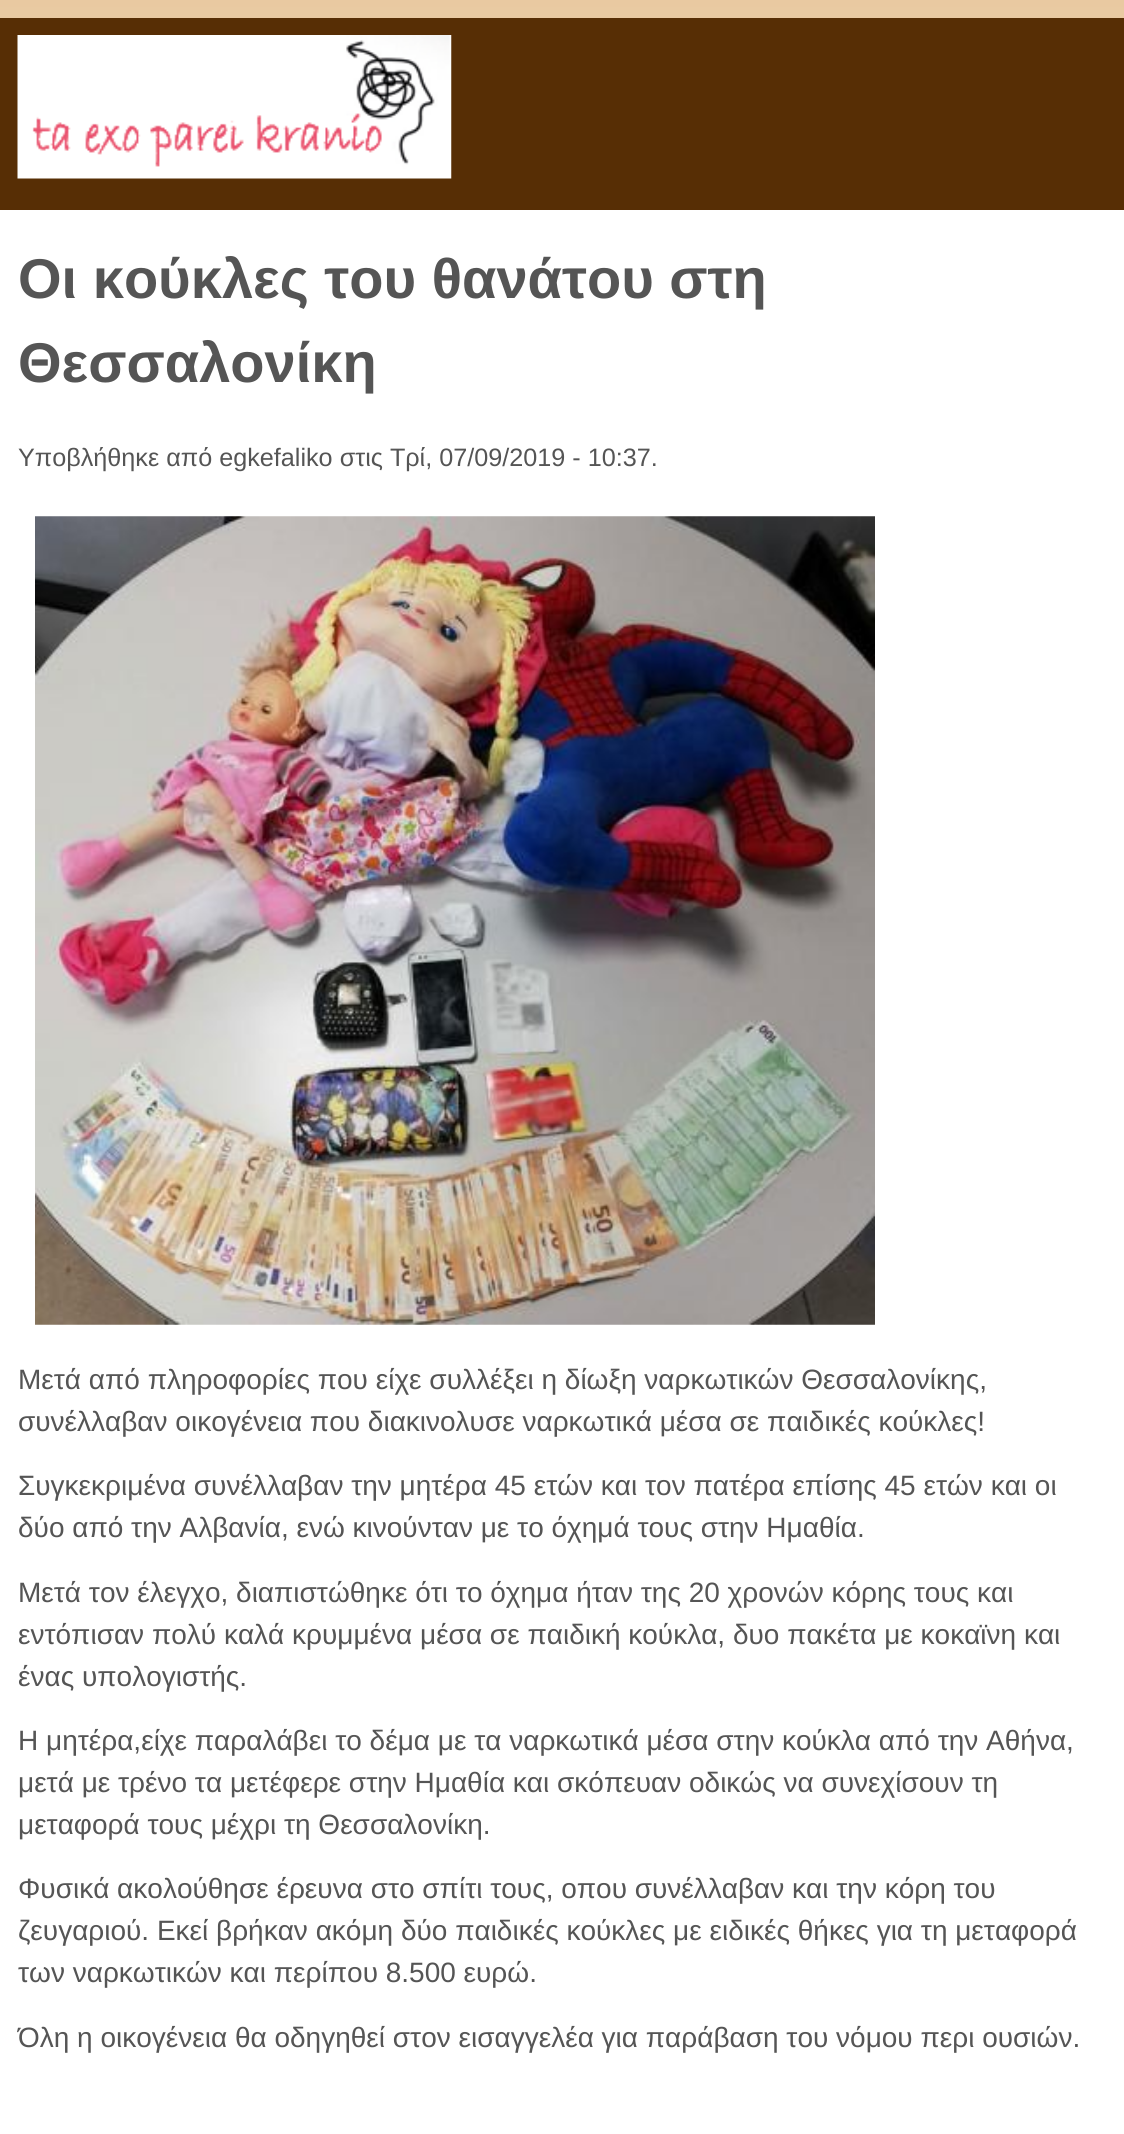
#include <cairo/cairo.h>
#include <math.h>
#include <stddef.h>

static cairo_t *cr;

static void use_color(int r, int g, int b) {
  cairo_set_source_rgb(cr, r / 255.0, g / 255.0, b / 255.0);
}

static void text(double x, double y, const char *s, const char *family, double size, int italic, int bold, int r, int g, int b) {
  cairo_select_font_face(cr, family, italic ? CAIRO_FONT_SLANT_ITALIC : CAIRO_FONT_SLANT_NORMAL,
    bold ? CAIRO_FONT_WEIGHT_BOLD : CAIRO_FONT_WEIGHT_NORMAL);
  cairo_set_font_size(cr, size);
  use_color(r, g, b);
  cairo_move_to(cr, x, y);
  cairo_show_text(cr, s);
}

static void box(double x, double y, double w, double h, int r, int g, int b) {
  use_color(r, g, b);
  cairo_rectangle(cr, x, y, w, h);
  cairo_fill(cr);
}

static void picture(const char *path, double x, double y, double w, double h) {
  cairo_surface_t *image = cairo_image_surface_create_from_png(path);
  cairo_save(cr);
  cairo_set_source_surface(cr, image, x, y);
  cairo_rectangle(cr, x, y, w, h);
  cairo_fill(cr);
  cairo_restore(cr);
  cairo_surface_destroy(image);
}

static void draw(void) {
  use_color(255, 255, 255);
  cairo_paint(cr);
  picture("img_01.png", 0, 0, 1124, 18);
  box(0, 18, 1124, 192, 87, 46, 5);
  picture("img_02.png", 17, 35, 435, 144);
  picture("img_03.png", 35, 516, 840, 809);
  text(18, 298, "Οι κούκλες του θανάτου στη", "Liberation Sans", 56, 0, 1, 85, 85, 85);
  text(18, 382, "Θεσσαλονίκη", "Liberation Sans", 56, 0, 1, 85, 85, 85);
  text(18, 466, "Υποβλήθηκε από egkefaliko στις Τρί, 07/09/2019 - 10:37.", "Liberation Sans", 25.2, 0, 0, 85, 85, 85);
  text(18, 1389, "Μετά από πληροφορίες που είχε συλλέξει η δίωξη ναρκωτικών Θεσσαλονίκης,", "Liberation Sans", 28, 0, 0, 85, 85, 85);
  text(18, 1431, "συνέλλαβαν οικογένεια που διακινολυσε ναρκωτικά μέσα σε παιδικές κούκλες!", "Liberation Sans", 28, 0, 0, 85, 85, 85);
  text(18, 1495, "Συγκεκριμένα συνέλλαβαν την μητέρα 45 ετών και τον πατέρα επίσης 45 ετών και οι", "Liberation Sans", 28, 0, 0, 85, 85, 85);
  text(18, 1537, "δύο από την Αλβανία, ενώ κινούνταν με το όχημά τους στην Ημαθία.", "Liberation Sans", 28, 0, 0, 85, 85, 85);
  text(18, 1602, "Μετά τον έλεγχο, διαπιστώθηκε ότι το όχημα ήταν της 20 χρονών κόρης τους και", "Liberation Sans", 28, 0, 0, 85, 85, 85);
  text(18, 1644, "εντόπισαν πολύ καλά κρυμμένα μέσα σε παιδική κούκλα, δυο πακέτα με κοκαϊνη και", "Liberation Sans", 28, 0, 0, 85, 85, 85);
  text(18, 1686, "ένας υπολογιστής.", "Liberation Sans", 28, 0, 0, 85, 85, 85);
  text(18, 1750, "Η μητέρα,είχε παραλάβει το δέμα με τα ναρκωτικά μέσα στην κούκλα από την Αθήνα,", "Liberation Sans", 28, 0, 0, 85, 85, 85);
  text(18, 1792, "μετά με τρένο τα μετέφερε στην Ημαθία και σκόπευαν οδικώς να συνεχίσουν τη", "Liberation Sans", 28, 0, 0, 85, 85, 85);
  text(18, 1834, "μεταφορά τους μέχρι τη Θεσσαλονίκη.", "Liberation Sans", 28, 0, 0, 85, 85, 85);
  text(18, 1898, "Φυσικά ακολούθησε έρευνα στο σπίτι τους, οπου συνέλλαβαν και την κόρη του", "Liberation Sans", 28, 0, 0, 85, 85, 85);
  text(18, 1940, "ζευγαριού. Εκεί βρήκαν ακόμη δύο παιδικές κούκλες με ειδικές θήκες για τη μεταφορά", "Liberation Sans", 28, 0, 0, 85, 85, 85);
  text(18, 1982, "των ναρκωτικών και περίπου 8.500 ευρώ.", "Liberation Sans", 28, 0, 0, 85, 85, 85);
  text(18, 2047, "Όλη η οικογένεια θα οδηγηθεί στον εισαγγελέα για παράβαση του νόμου περι ουσιών.", "Liberation Sans", 28, 0, 0, 85, 85, 85);
}

int main(void) {
  cairo_surface_t *surface = cairo_image_surface_create(CAIRO_FORMAT_RGB24, 1124, 2134);
  cr = cairo_create(surface);
  cairo_font_options_t *options = cairo_font_options_create();
  cairo_font_options_set_hint_metrics(options, CAIRO_HINT_METRICS_OFF);
  cairo_font_options_set_hint_style(options, CAIRO_HINT_STYLE_NONE);
  cairo_set_font_options(cr, options);
  cairo_set_miter_limit(cr, 4);
  draw();
  cairo_surface_write_to_png(surface, "out.png");
  cairo_font_options_destroy(options);
  cairo_destroy(cr);
  cairo_surface_destroy(surface);
  return 0;
}
